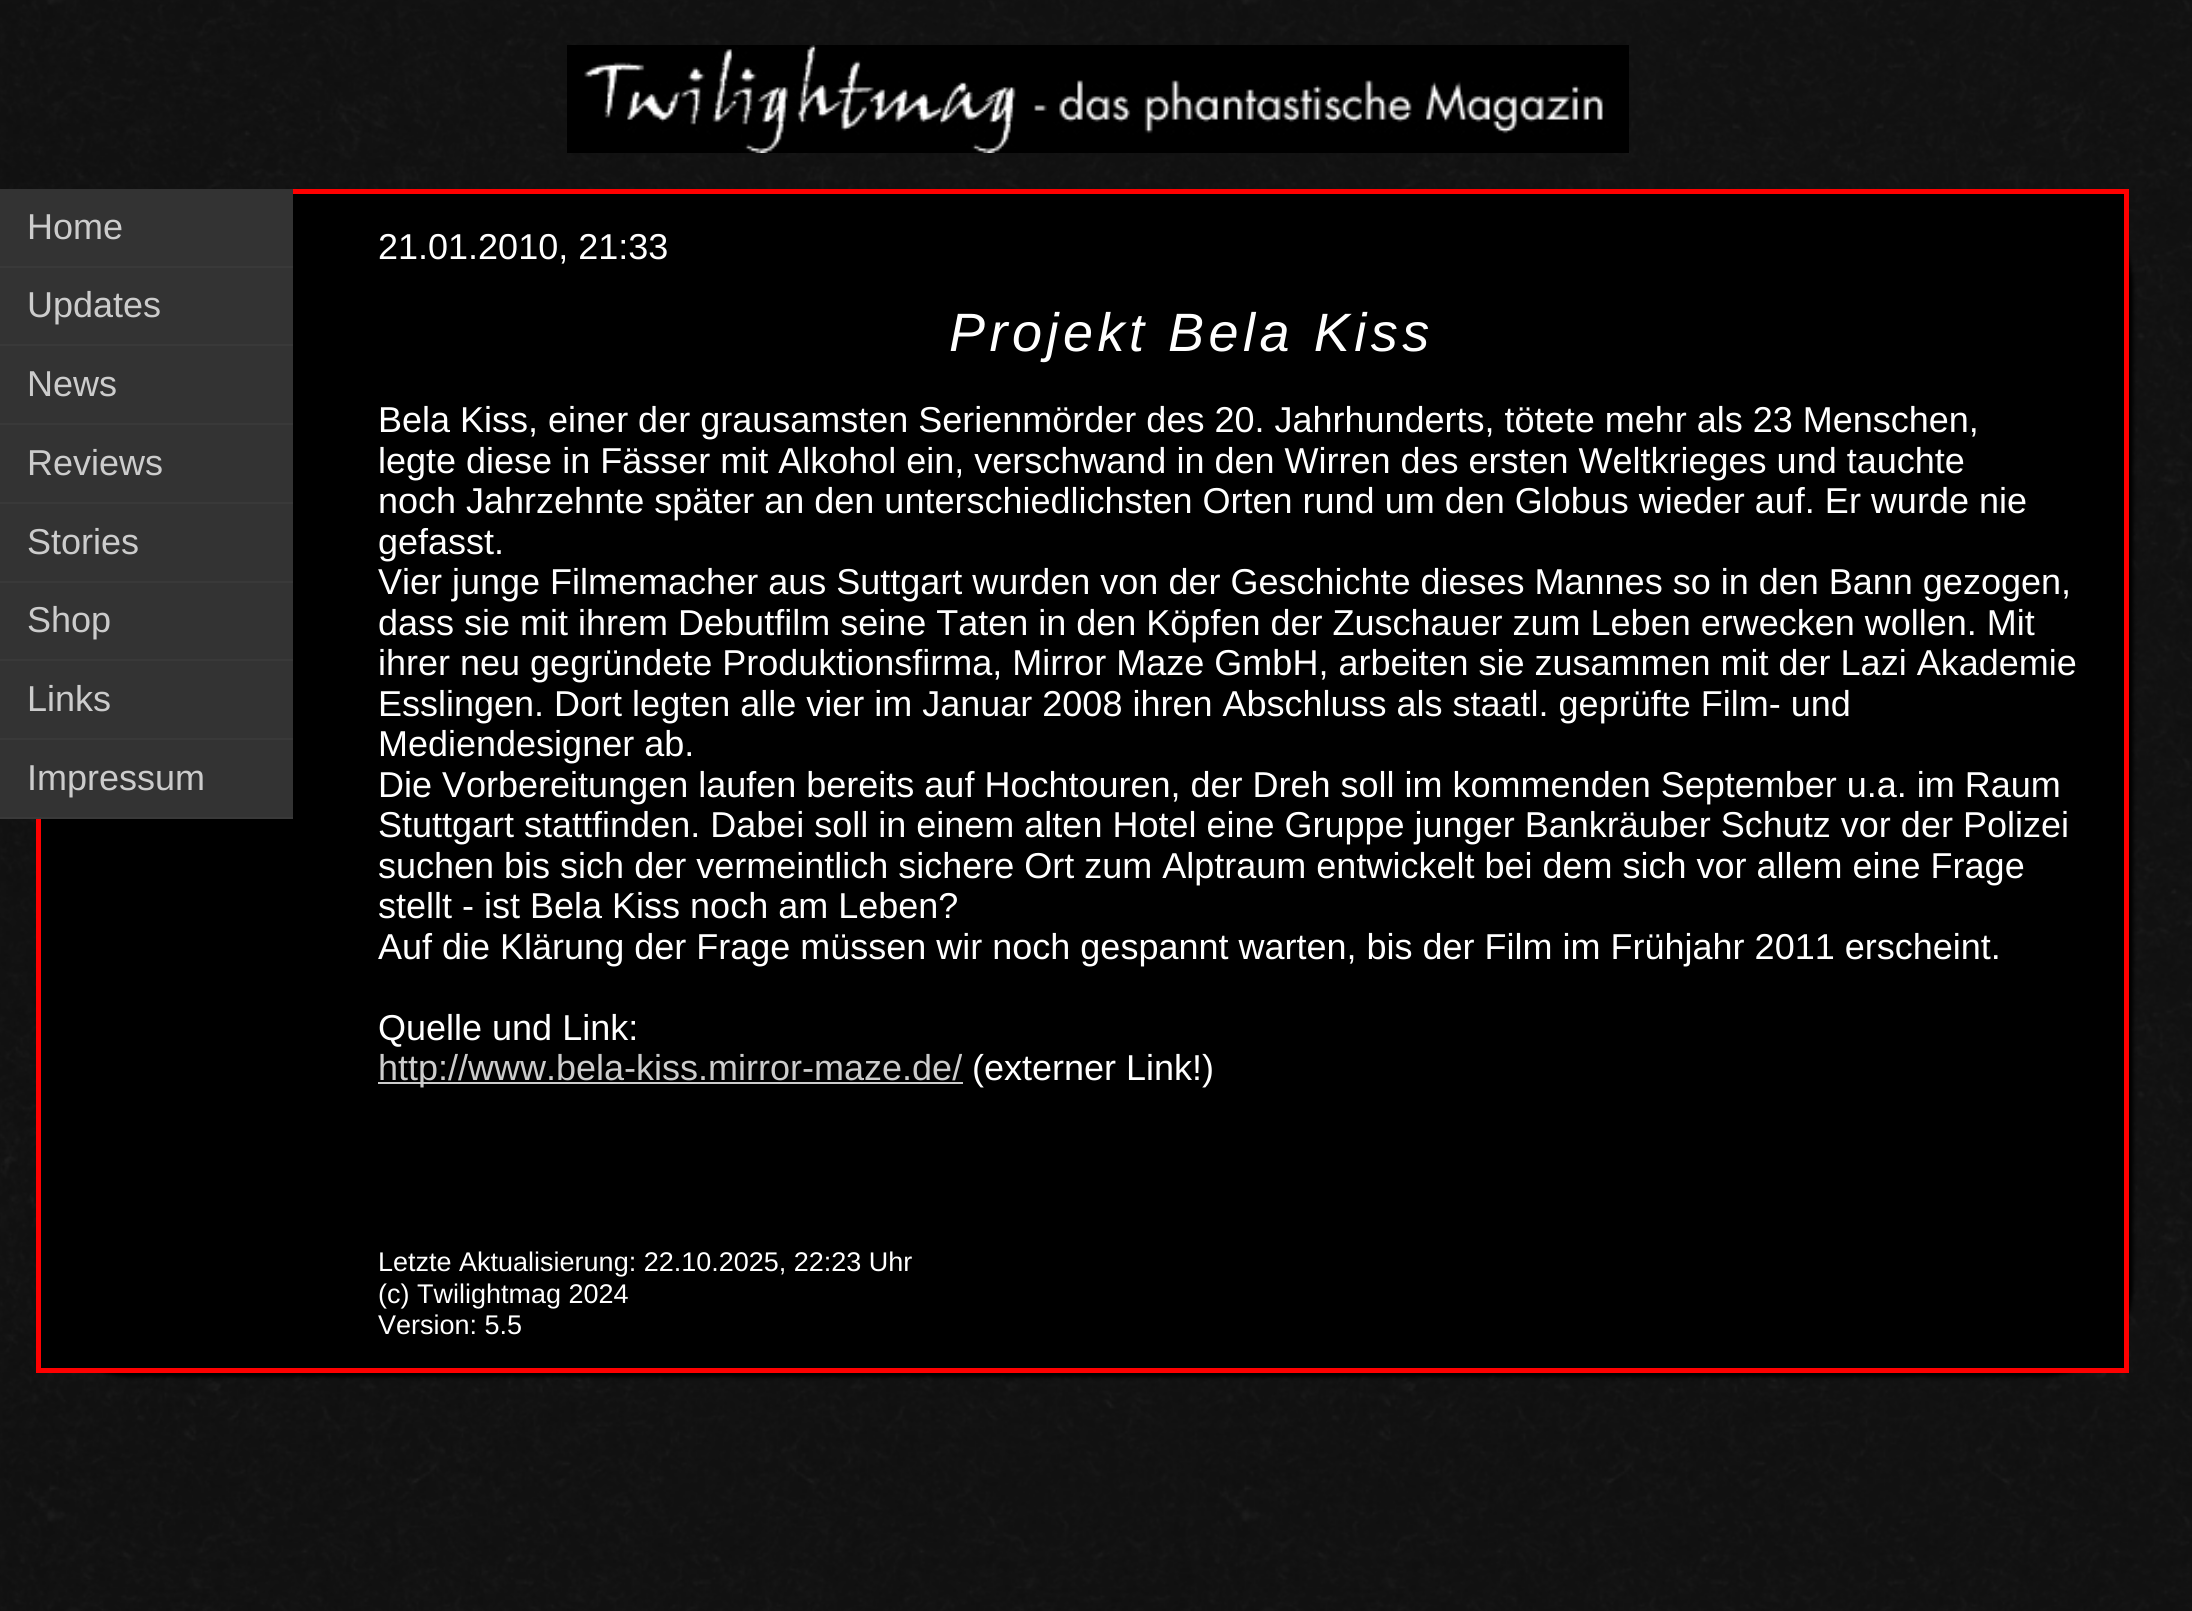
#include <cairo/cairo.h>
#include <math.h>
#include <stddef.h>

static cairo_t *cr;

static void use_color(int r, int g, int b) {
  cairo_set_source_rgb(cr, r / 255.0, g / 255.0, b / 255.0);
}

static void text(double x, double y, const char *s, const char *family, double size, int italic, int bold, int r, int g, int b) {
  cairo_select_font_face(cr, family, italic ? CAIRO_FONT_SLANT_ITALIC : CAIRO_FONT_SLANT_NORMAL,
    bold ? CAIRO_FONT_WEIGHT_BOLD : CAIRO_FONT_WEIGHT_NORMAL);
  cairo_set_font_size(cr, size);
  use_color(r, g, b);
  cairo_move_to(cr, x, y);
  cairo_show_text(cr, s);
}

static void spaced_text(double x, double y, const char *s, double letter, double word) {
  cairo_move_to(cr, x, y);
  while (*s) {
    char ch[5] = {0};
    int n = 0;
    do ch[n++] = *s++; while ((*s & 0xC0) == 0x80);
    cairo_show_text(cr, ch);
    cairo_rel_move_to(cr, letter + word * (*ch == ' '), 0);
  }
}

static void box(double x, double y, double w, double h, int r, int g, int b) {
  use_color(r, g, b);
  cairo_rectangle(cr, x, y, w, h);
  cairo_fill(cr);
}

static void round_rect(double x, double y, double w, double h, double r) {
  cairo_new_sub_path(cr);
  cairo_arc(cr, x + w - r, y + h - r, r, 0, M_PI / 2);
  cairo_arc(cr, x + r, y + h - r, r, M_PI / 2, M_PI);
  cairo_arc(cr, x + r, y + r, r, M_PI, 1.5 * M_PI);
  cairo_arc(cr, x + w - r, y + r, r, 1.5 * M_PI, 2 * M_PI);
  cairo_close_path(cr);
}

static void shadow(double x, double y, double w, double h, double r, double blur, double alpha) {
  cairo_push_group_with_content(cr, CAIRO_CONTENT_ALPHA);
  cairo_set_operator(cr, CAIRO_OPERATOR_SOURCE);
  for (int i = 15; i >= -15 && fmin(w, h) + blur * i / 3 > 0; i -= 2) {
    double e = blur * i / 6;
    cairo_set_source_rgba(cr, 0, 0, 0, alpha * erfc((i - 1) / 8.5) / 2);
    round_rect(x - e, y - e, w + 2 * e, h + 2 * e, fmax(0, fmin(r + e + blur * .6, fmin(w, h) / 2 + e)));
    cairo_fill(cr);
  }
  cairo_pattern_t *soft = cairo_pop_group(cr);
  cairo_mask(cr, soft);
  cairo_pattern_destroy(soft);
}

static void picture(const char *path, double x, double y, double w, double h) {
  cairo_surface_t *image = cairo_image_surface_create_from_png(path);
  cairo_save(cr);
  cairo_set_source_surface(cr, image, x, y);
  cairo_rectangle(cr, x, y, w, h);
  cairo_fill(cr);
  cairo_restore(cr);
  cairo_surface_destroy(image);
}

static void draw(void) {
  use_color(255, 255, 255);
  cairo_paint(cr);
  picture("img_01.png", 0, 0, 2192, 1611);
  picture("img_02.png", 567, 45, 1062, 108);
  use_color(0, 0, 0);
  shadow(41, 194, 2092, 1183, 90, 2, 1);
  use_color(0, 0, 0);
  cairo_rectangle(cr, 38.5, 191.5, 2088, 1179);
  cairo_fill_preserve(cr);
  use_color(255, 0, 0);
  cairo_set_line_width(cr, 5);
  cairo_stroke(cr);
  box(0, 189, 293, 77, 51, 51, 51);
  box(0, 266, 293, 2, 57, 57, 57);
  box(0, 268, 293, 155, 51, 51, 51);
  box(0, 344, 293, 2, 57, 57, 57);
  box(0, 423, 293, 2, 57, 57, 57);
  box(0, 425, 293, 77, 51, 51, 51);
  box(0, 502, 293, 2, 57, 57, 57);
  box(0, 504, 293, 77, 51, 51, 51);
  box(0, 581, 293, 2, 57, 57, 57);
  box(0, 583, 293, 155, 51, 51, 51);
  box(0, 659, 293, 2, 57, 57, 57);
  box(0, 738, 293, 2, 57, 57, 57);
  box(0, 740, 293, 77, 51, 51, 51);
  box(0, 817, 293, 2, 57, 57, 57);
  box(378, 1082, 585, 2, 204, 204, 204);
  text(27, 239, "Home", "Liberation Sans", 36, 0, 0, 204, 204, 204);
  text(27, 317, "Updates", "Liberation Sans", 36, 0, 0, 204, 204, 204);
  text(27, 396, "News", "Liberation Sans", 36, 0, 0, 204, 204, 204);
  text(27, 475, "Reviews", "Liberation Sans", 36, 0, 0, 204, 204, 204);
  text(27, 554, "Stories", "Liberation Sans", 36, 0, 0, 204, 204, 204);
  text(27, 632, "Shop", "Liberation Sans", 36, 0, 0, 204, 204, 204);
  text(27, 711, "Links", "Liberation Sans", 36, 0, 0, 204, 204, 204);
  text(27, 790, "Impressum", "Liberation Sans", 36, 0, 0, 204, 204, 204);
  text(378, 259, "21.01.2010, 21:33", "Liberation Sans", 36, 0, 0, 255, 255, 255);
  cairo_select_font_face(cr, "Liberation Sans", CAIRO_FONT_SLANT_ITALIC, CAIRO_FONT_WEIGHT_NORMAL);
  cairo_set_font_size(cr, 54);
  spaced_text(949, 351, "Projekt Bela Kiss", 4.5, 0);
  text(378, 432, "Bela Kiss, einer der grausamsten Serienmörder des 20. Jahrhunderts, tötete mehr als 23 Menschen,", "Liberation Sans", 36, 0, 0, 255, 255, 255);
  text(378, 473, "legte diese in Fässer mit Alkohol ein, verschwand in den Wirren des ersten Weltkrieges und tauchte", "Liberation Sans", 36, 0, 0, 255, 255, 255);
  text(378, 513, "noch Jahrzehnte später an den unterschiedlichsten Orten rund um den Globus wieder auf. Er wurde nie", "Liberation Sans", 36, 0, 0, 255, 255, 255);
  text(378, 554, "gefasst.", "Liberation Sans", 36, 0, 0, 255, 255, 255);
  text(378, 594, "Vier junge Filmemacher aus Suttgart wurden von der Geschichte dieses Mannes so in den Bann gezogen,", "Liberation Sans", 36, 0, 0, 255, 255, 255);
  text(378, 635, "dass sie mit ihrem Debutfilm seine Taten in den Köpfen der Zuschauer zum Leben erwecken wollen. Mit", "Liberation Sans", 36, 0, 0, 255, 255, 255);
  text(378, 675, "ihrer neu gegründete Produktionsfirma, Mirror Maze GmbH, arbeiten sie zusammen mit der Lazi Akademie", "Liberation Sans", 36, 0, 0, 255, 255, 255);
  text(378, 716, "Esslingen. Dort legten alle vier im Januar 2008 ihren Abschluss als staatl. geprüfte Film- und", "Liberation Sans", 36, 0, 0, 255, 255, 255);
  text(378, 756, "Mediendesigner ab.", "Liberation Sans", 36, 0, 0, 255, 255, 255);
  text(378, 797, "Die Vorbereitungen laufen bereits auf Hochtouren, der Dreh soll im kommenden September u.a. im Raum", "Liberation Sans", 36, 0, 0, 255, 255, 255);
  text(378, 837, "Stuttgart stattfinden. Dabei soll in einem alten Hotel eine Gruppe junger Bankräuber Schutz vor der Polizei", "Liberation Sans", 36, 0, 0, 255, 255, 255);
  text(378, 878, "suchen bis sich der vermeintlich sichere Ort zum Alptraum entwickelt bei dem sich vor allem eine Frage", "Liberation Sans", 36, 0, 0, 255, 255, 255);
  text(378, 918, "stellt - ist Bela Kiss noch am Leben?", "Liberation Sans", 36, 0, 0, 255, 255, 255);
  text(378, 959, "Auf die Klärung der Frage müssen wir noch gespannt warten, bis der Film im Frühjahr 2011 erscheint.", "Liberation Sans", 36, 0, 0, 255, 255, 255);
  text(378, 1040, "Quelle und Link:", "Liberation Sans", 36, 0, 0, 255, 255, 255);
  text(378, 1080, "http://www.bela-kiss.mirror-maze.de/", "Liberation Sans", 36, 0, 0, 204, 204, 204);
  text(972, 1080, "(externer Link!)", "Liberation Sans", 36, 0, 0, 255, 255, 255);
  text(378, 1271, "Letzte Aktualisierung: 22.10.2025, 22:23 Uhr", "Liberation Sans", 27, 0, 0, 255, 255, 255);
  text(378, 1303, "(c) Twilightmag 2024", "Liberation Sans", 27, 0, 0, 255, 255, 255);
  text(378, 1334, "Version: 5.5", "Liberation Sans", 27, 0, 0, 255, 255, 255);
}

int main(void) {
  cairo_surface_t *surface = cairo_image_surface_create(CAIRO_FORMAT_RGB24, 2192, 1611);
  cr = cairo_create(surface);
  cairo_font_options_t *options = cairo_font_options_create();
  cairo_font_options_set_hint_metrics(options, CAIRO_HINT_METRICS_OFF);
  cairo_font_options_set_hint_style(options, CAIRO_HINT_STYLE_NONE);
  cairo_set_font_options(cr, options);
  cairo_set_miter_limit(cr, 4);
  draw();
  cairo_surface_write_to_png(surface, "out.png");
  cairo_font_options_destroy(options);
  cairo_destroy(cr);
  cairo_surface_destroy(surface);
  return 0;
}
